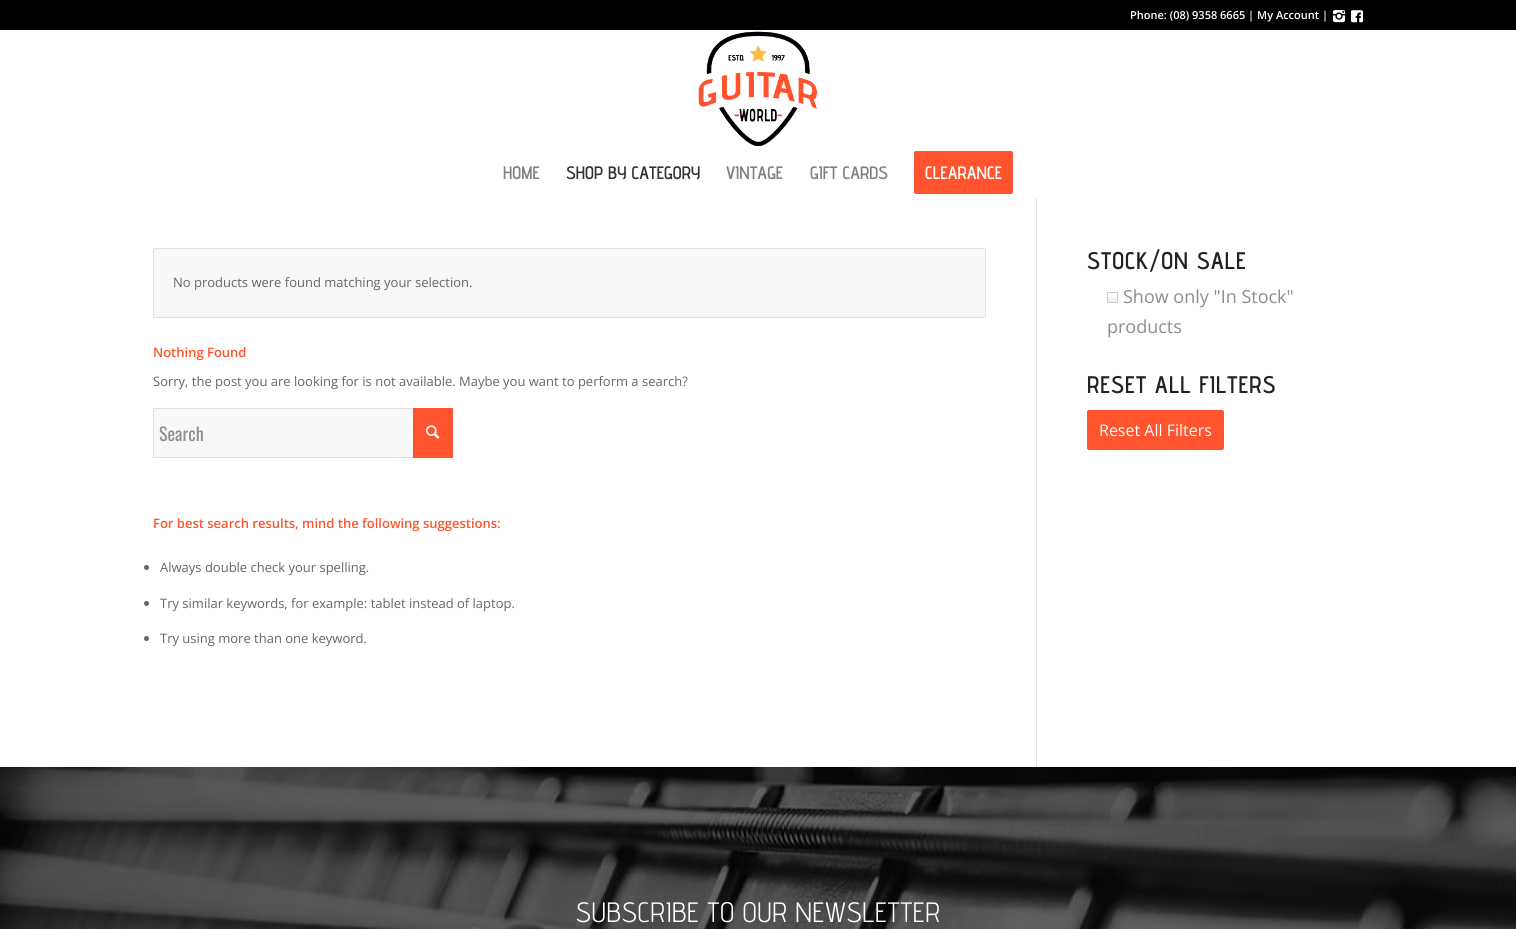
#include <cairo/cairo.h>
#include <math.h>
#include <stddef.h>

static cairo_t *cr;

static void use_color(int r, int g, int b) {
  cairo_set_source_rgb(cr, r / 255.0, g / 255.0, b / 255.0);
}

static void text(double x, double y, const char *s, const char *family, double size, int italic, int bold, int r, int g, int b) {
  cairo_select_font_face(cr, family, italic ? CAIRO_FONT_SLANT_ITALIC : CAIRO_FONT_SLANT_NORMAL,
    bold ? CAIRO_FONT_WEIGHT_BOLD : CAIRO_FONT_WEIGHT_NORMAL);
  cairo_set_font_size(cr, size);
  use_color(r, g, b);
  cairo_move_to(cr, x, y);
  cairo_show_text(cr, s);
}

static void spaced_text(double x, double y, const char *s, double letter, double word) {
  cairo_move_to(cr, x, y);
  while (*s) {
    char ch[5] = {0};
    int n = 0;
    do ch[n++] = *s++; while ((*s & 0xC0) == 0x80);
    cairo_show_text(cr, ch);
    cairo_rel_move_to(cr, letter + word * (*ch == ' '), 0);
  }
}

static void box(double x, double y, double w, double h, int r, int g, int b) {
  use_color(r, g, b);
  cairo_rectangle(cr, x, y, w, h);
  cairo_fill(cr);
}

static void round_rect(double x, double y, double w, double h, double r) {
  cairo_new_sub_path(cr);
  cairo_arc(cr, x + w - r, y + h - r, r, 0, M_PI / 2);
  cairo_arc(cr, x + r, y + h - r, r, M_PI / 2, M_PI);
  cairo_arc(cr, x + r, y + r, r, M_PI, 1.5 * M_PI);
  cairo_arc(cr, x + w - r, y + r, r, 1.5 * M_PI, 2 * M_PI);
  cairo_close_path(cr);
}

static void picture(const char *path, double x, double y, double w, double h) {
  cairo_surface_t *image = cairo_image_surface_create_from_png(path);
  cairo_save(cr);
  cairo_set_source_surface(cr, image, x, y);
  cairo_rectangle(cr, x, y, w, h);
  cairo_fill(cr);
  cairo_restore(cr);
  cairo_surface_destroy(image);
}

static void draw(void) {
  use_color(255, 255, 255);
  cairo_paint(cr);
  box(0, 0, 1516, 30, 0, 0, 0);
  picture("img_01.png", 1333, 10, 13, 13);
  picture("img_02.png", 1351, 10, 13, 13);
  picture("img_03.png", 698, 31, 119, 116);
  use_color(255, 84, 45);
  round_rect(915, 152, 97, 41, 1);
  cairo_fill_preserve(cr);
  cairo_stroke(cr);
  box(1036, 198, 1, 569, 225, 225, 225);
  use_color(248, 248, 248);
  round_rect(153.5, 248.5, 832, 69, 1.5);
  cairo_fill_preserve(cr);
  use_color(225, 225, 225);
  cairo_set_line_width(cr, 1);
  cairo_stroke(cr);
  box(154, 409, 259, 48, 248, 248, 248);
  cairo_rectangle(cr, 153.5, 408.5, 299, 49);
  use_color(225, 225, 225);
  cairo_stroke(cr);
  box(413, 408, 40, 50, 255, 84, 45);
  picture("img_04.png", 426, 425, 14, 14);
  use_color(102, 102, 102);
  cairo_arc(cr, 146.5, 567.5, 2.5, 0, 2 * M_PI);
  cairo_fill(cr);
  cairo_arc(cr, 146.5, 603.5, 2.5, 0, 2 * M_PI);
  cairo_fill(cr);
  cairo_arc(cr, 146.5, 638.5, 2.5, 0, 2 * M_PI);
  cairo_fill(cr);
  picture("img_05.png", 1107, 292, 11, 11);
  use_color(255, 84, 45);
  round_rect(1087, 410, 137, 40, 2);
  cairo_fill(cr);
  picture("img_06.png", 0, 767, 1516, 162);
  text(1130, 19, "Phone: (08) 9358 6665 | My Account |", "Open Sans SemiBold", 11, 0, 0, 255, 255, 255);
  text(503, 179, "HOME", "Advent Pro SemiBold", 18, 0, 0, 128, 128, 128);
  text(566, 179, "SHOP BY CATEGORY", "Advent Pro SemiBold", 18, 0, 0, 51, 51, 51);
  text(726, 179, "VINTAGE", "Advent Pro SemiBold", 18, 0, 0, 128, 128, 128);
  text(810, 179, "GIFT CARDS", "Advent Pro SemiBold", 18, 0, 0, 128, 128, 128);
  text(925, 179, "CLEARANCE", "Advent Pro SemiBold", 18, 0, 0, 255, 255, 255);
  text(173, 287, "No products were found matching your selection.", "Open Sans", 13, 0, 0, 102, 102, 102);
  text(153, 357, "Nothing Found", "Open Sans SemiBold", 13, 0, 0, 255, 84, 45);
  text(153, 386, "Sorry, the post you are looking for is not available. Maybe you want to perform a search?", "Open Sans", 13, 0, 0, 102, 102, 102);
  text(159, 441, "Search", "Oswald", 18, 0, 0, 141, 141, 141);
  text(153, 528, "For best search results, mind the following suggestions:", "Open Sans SemiBold", 13, 0, 0, 255, 84, 45);
  text(160, 572, "Always double check your spelling.", "Open Sans", 13, 0, 0, 102, 102, 102);
  text(160, 608, "Try similar keywords, for example: tablet instead of laptop.", "Open Sans", 13, 0, 0, 102, 102, 102);
  text(160, 643, "Try using more than one keyword.", "Open Sans", 13, 0, 0, 102, 102, 102);
  cairo_select_font_face(cr, "Advent Pro SemiBold", CAIRO_FONT_SLANT_NORMAL, CAIRO_FONT_WEIGHT_NORMAL);
  cairo_set_font_size(cr, 24);
  use_color(34, 34, 34);
  spaced_text(1087, 269, "STOCK/ON SALE", 1, 0);
  text(1123, 303, "Show only \"In Stock\"", "Open Sans", 18, 0, 0, 141, 141, 141);
  text(1107, 333, "products", "Open Sans", 18, 0, 0, 141, 141, 141);
  cairo_select_font_face(cr, "Advent Pro SemiBold", CAIRO_FONT_SLANT_NORMAL, CAIRO_FONT_WEIGHT_NORMAL);
  cairo_set_font_size(cr, 24);
  use_color(34, 34, 34);
  spaced_text(1087, 393, "RESET ALL FILTERS", 1, 0);
  text(1099, 436, "Reset All Filters", "Open Sans", 16, 0, 0, 255, 255, 255);
  cairo_select_font_face(cr, "Advent Pro", CAIRO_FONT_SLANT_NORMAL, CAIRO_FONT_WEIGHT_NORMAL);
  cairo_set_font_size(cr, 28);
  spaced_text(576, 922, "SUBSCRIBE TO OUR NEWSLETTER", 1, -1);
}

int main(void) {
  cairo_surface_t *surface = cairo_image_surface_create(CAIRO_FORMAT_RGB24, 1516, 929);
  cr = cairo_create(surface);
  cairo_font_options_t *options = cairo_font_options_create();
  cairo_font_options_set_hint_metrics(options, CAIRO_HINT_METRICS_OFF);
  cairo_font_options_set_hint_style(options, CAIRO_HINT_STYLE_NONE);
  cairo_set_font_options(cr, options);
  cairo_set_miter_limit(cr, 4);
  draw();
  cairo_surface_write_to_png(surface, "out.png");
  cairo_font_options_destroy(options);
  cairo_destroy(cr);
  cairo_surface_destroy(surface);
  return 0;
}
